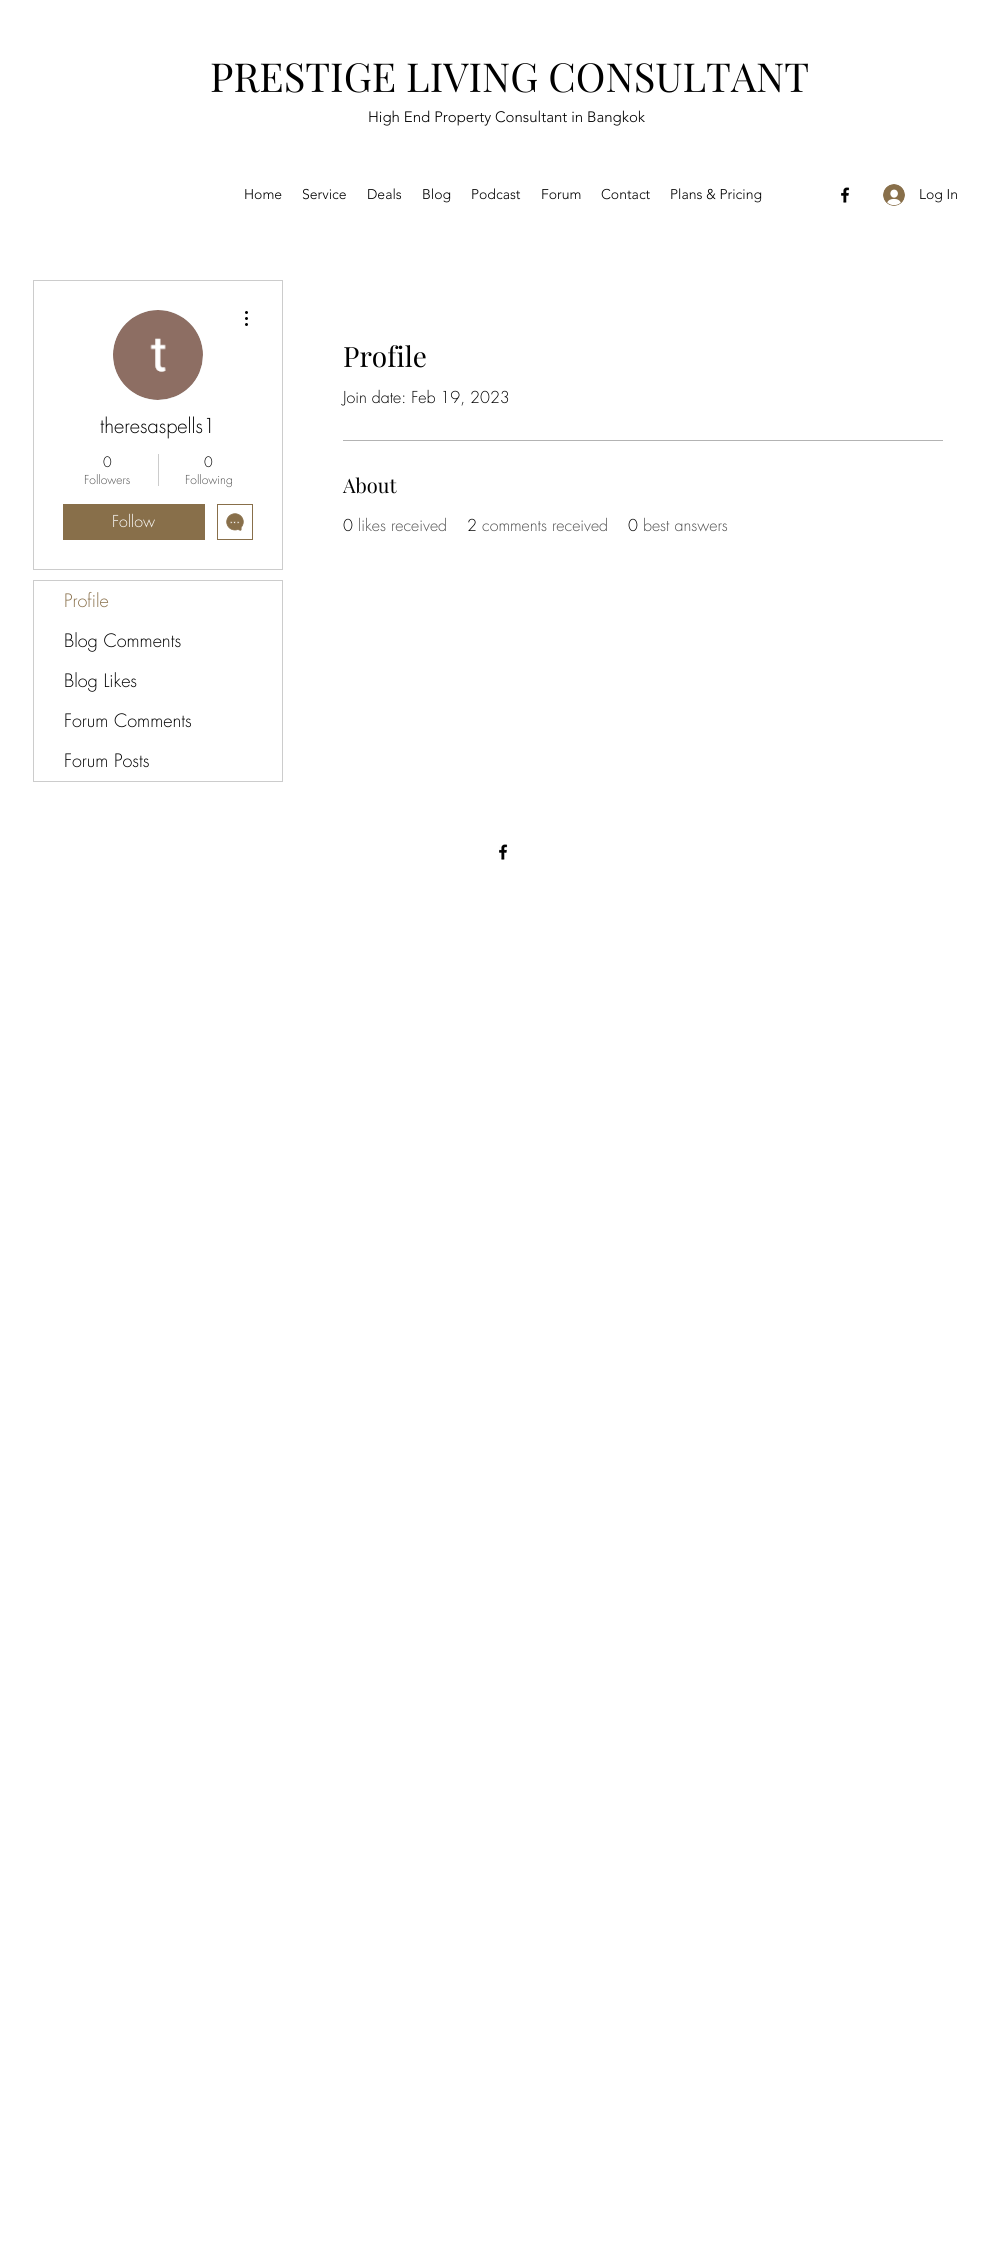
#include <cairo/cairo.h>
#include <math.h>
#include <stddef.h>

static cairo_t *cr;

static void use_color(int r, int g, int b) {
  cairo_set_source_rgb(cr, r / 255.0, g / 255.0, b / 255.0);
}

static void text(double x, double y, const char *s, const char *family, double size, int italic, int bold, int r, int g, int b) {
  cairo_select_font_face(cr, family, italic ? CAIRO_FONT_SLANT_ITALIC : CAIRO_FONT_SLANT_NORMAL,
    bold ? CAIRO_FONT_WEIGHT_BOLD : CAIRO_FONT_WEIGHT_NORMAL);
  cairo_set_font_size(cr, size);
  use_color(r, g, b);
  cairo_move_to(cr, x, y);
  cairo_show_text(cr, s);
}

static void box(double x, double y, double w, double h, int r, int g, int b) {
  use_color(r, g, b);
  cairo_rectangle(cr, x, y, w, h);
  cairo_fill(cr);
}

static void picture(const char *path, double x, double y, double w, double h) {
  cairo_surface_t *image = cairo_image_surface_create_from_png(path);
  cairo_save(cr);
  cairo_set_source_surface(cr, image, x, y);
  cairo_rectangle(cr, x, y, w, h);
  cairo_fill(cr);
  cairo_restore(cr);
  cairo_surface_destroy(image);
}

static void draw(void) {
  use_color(255, 255, 255);
  cairo_paint(cr);
  picture("img_01.png", 841, 187, 9, 16);
  picture("img_02.png", 883, 184, 22, 22);
  cairo_rectangle(cr, 33.5, 280.5, 249, 289);
  use_color(204, 204, 204);
  cairo_set_line_width(cr, 1);
  cairo_stroke(cr);
  use_color(216, 216, 216);
  cairo_arc(cr, 158, 355, 45, 0, 2 * M_PI);
  cairo_fill(cr);
  picture("img_03.png", 113, 310, 90, 90);
  picture("img_04.png", 245, 311, 3, 15);
  box(158, 454, 1, 32, 204, 204, 204);
  box(63, 504, 142, 36, 136, 111, 74);
  cairo_rectangle(cr, 217.5, 504.5, 35, 35);
  cairo_stroke(cr);
  picture("img_05.png", 226, 513, 18, 18);
  cairo_rectangle(cr, 33.5, 580.5, 249, 201);
  use_color(204, 204, 204);
  cairo_stroke(cr);
  box(343, 440, 600, 1, 179, 179, 179);
  picture("img_01.png", 499, 844, 9, 16);
  text(210, 92, "PRESTIGE LIVING CONSULTANT", "Playfair Display", 40, 0, 0, 0, 0, 0);
  text(368, 122, "High End Property Consultant in Bangkok", "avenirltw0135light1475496 Light", 15, 0, 0, 0, 0, 0);
  text(244, 199, "Home", "avenirltw0135light1475496 Light", 14, 0, 0, 0, 0, 0);
  text(302, 199, "Service", "avenirltw0135light1475496 Light", 14, 0, 0, 0, 0, 0);
  text(367, 199, "Deals", "avenirltw0135light1475496 Light", 14, 0, 0, 0, 0, 0);
  text(422, 199, "Blog", "avenirltw0135light1475496 Light", 14, 0, 0, 0, 0, 0);
  text(471, 199, "Podcast", "avenirltw0135light1475496 Light", 14, 0, 0, 0, 0, 0);
  text(541, 199, "Forum", "avenirltw0135light1475496 Light", 14, 0, 0, 0, 0, 0);
  text(601, 199, "Contact", "avenirltw0135light1475496 Light", 14, 0, 0, 0, 0, 0);
  text(670, 199, "Plans & Pricing", "avenirltw0135light1475496 Light", 14, 0, 0, 0, 0, 0);
  text(919, 199, "Log In", "avenirltw0135light1475496 Light", 14, 0, 0, 0, 0, 0);
  text(100, 433, "theresaspells1", "futura Light", 20, 0, 0, 0, 0, 0);
  text(103, 467, "0", "futura Light", 14, 0, 0, 0, 0, 0);
  text(84, 484, "Followers", "futura Light", 12, 0, 0, 77, 77, 77);
  text(204, 467, "0", "futura Light", 14, 0, 0, 0, 0, 0);
  text(185, 484, "Following", "futura Light", 12, 0, 0, 77, 77, 77);
  text(112, 527, "Follow", "futura Light", 16, 0, 0, 255, 255, 255);
  text(64, 607, "Profile", "futura Light", 18, 0, 0, 136, 111, 74);
  text(64, 647, "Blog Comments", "futura Light", 18, 0, 0, 0, 0, 0);
  text(64, 687, "Blog Likes", "futura Light", 18, 0, 0, 0, 0, 0);
  text(64, 727, "Forum Comments", "futura Light", 18, 0, 0, 0, 0, 0);
  text(64, 767, "Forum Posts", "futura Light", 18, 0, 0, 0, 0, 0);
  text(343, 367, "Profile", "Playfair Display", 28, 0, 0, 0, 0, 0);
  text(343, 403, "Join date: Feb 19, 2023", "futura Light", 16, 0, 0, 0, 0, 0);
  text(343, 493, "About", "Playfair Display", 20, 0, 0, 0, 0, 0);
  text(343, 531, "0", "futura Light", 16, 0, 0, 0, 0, 0);
  text(358, 531, "likes received", "futura Light", 16, 0, 0, 77, 77, 77);
  text(467, 531, "2", "futura Light", 16, 0, 0, 0, 0, 0);
  text(482, 531, "comments received", "futura Light", 16, 0, 0, 77, 77, 77);
  text(628, 531, "0", "futura Light", 16, 0, 0, 0, 0, 0);
  text(643, 531, "best answers", "futura Light", 16, 0, 0, 77, 77, 77);
}

int main(void) {
  cairo_surface_t *surface = cairo_image_surface_create(CAIRO_FORMAT_RGB24, 1006, 2246);
  cr = cairo_create(surface);
  cairo_font_options_t *options = cairo_font_options_create();
  cairo_font_options_set_hint_metrics(options, CAIRO_HINT_METRICS_OFF);
  cairo_font_options_set_hint_style(options, CAIRO_HINT_STYLE_NONE);
  cairo_set_font_options(cr, options);
  cairo_set_miter_limit(cr, 4);
  draw();
  cairo_surface_write_to_png(surface, "out.png");
  cairo_font_options_destroy(options);
  cairo_destroy(cr);
  cairo_surface_destroy(surface);
  return 0;
}
